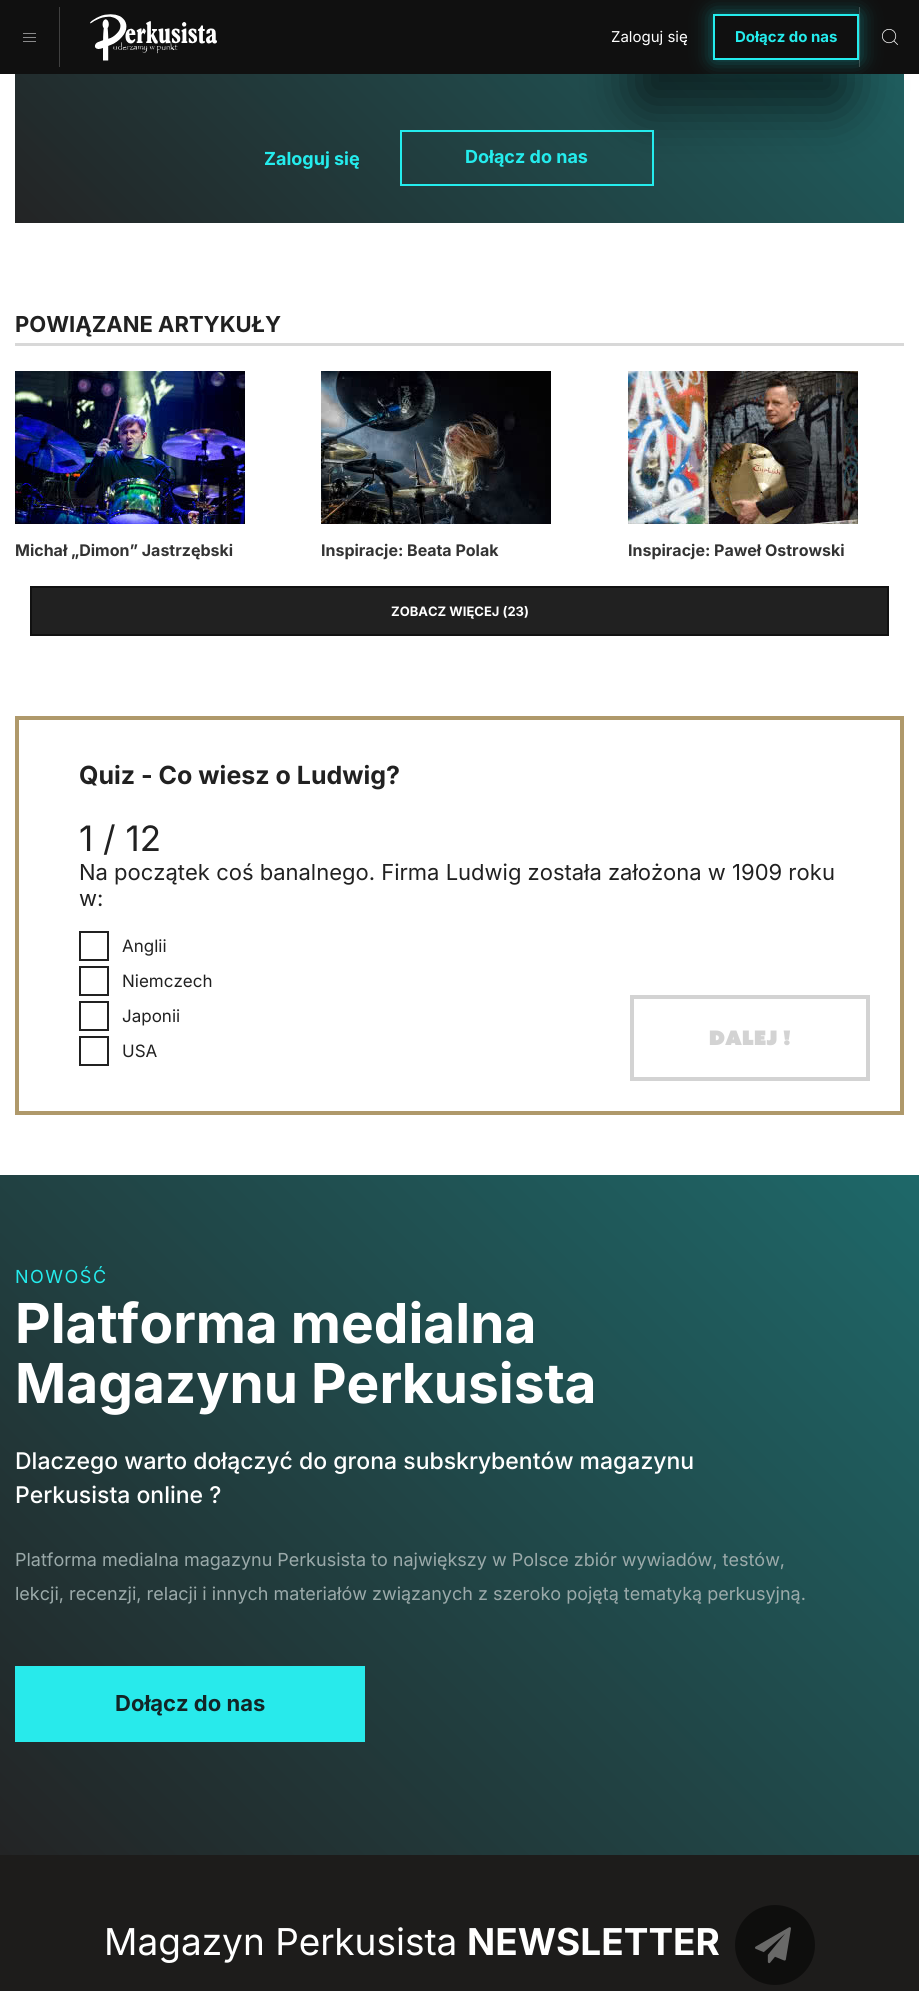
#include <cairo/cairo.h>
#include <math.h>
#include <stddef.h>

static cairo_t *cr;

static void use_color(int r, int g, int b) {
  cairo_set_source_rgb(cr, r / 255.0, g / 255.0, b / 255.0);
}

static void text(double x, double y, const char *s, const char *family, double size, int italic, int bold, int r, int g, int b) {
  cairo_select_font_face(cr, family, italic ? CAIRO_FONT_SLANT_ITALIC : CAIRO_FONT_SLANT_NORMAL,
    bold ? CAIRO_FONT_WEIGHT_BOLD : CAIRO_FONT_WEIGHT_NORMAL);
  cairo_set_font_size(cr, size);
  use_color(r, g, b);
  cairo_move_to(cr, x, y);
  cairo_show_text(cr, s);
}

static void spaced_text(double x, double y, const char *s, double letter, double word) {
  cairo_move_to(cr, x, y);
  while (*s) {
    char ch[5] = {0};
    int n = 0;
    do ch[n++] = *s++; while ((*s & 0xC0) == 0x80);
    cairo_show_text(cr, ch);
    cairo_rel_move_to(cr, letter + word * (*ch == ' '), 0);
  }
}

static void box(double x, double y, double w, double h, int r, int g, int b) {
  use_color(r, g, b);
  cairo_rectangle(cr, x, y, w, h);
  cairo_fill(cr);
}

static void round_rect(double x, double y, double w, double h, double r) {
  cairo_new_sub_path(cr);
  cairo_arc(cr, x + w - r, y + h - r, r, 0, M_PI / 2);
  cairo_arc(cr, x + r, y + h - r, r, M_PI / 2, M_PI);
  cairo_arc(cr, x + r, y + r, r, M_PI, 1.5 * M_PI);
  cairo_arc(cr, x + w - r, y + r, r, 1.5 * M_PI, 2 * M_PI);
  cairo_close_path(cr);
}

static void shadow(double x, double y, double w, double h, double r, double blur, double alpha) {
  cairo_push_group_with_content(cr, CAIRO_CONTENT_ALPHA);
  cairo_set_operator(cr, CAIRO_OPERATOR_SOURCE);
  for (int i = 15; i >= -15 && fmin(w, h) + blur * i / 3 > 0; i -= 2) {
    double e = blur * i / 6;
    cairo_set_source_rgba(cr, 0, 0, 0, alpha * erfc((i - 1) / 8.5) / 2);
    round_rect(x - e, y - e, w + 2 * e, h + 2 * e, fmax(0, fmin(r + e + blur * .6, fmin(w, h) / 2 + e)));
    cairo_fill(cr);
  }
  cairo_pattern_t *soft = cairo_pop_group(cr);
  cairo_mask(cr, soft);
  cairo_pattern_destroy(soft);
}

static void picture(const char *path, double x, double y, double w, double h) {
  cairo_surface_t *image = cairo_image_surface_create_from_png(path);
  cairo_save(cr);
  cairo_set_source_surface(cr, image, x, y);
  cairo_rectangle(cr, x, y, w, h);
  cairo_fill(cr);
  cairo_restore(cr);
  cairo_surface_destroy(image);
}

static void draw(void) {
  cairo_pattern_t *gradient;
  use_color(255, 255, 255);
  cairo_paint(cr);
  gradient = cairo_pattern_create_linear(154, 362, 766, -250);
  cairo_pattern_add_color_stop_rgba(gradient, 0, 0.137, 0.141, 0.145, 1);
  cairo_pattern_add_color_stop_rgba(gradient, 1, 0.118, 0.408, 0.412, 1);
  cairo_set_source(cr, gradient);
  cairo_pattern_destroy(gradient);
  cairo_rectangle(cr, 15, 74, 889, 149);
  cairo_fill(cr);
  use_color(0, 0, 0);
  shadow(631, -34, 220, 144, 14, 24, 0.56);
  box(0, 0, 919, 74, 16, 16, 16);
  box(59, 7, 1, 60, 64, 64, 64);
  box(23, 33, 13, 1, 138, 138, 139);
  box(23, 37, 13, 1, 138, 138, 139);
  box(23, 41, 13, 1, 138, 138, 139);
  picture("img_01.png", 90, 14, 127, 47);
  cairo_save(cr);
  cairo_set_fill_rule(cr, CAIRO_FILL_RULE_EVEN_ODD);
  cairo_new_path(cr);
  cairo_move_to(cr, 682, 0);
  cairo_line_to(cr, 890, 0);
  cairo_line_to(cr, 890, 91);
  cairo_line_to(cr, 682, 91);
  cairo_close_path(cr);
  cairo_move_to(cr, 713, 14);
  cairo_line_to(cr, 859, 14);
  cairo_line_to(cr, 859, 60);
  cairo_line_to(cr, 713, 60);
  cairo_close_path(cr);
  cairo_clip(cr);
  use_color(17, 104, 105);
  shadow(713, 14, 146, 46, 0, 10, 1);
  cairo_restore(cr);
  cairo_rectangle(cr, 714, 15, 144, 44);
  use_color(36, 236, 237);
  cairo_stroke(cr);
  cairo_set_source_rgba(cr, 1, 1, 1, 0.2);
  cairo_rectangle(cr, 859, 7, 1, 60);
  cairo_fill(cr);
  picture("img_02.png", 882, 29, 16, 16);
  cairo_rectangle(cr, 401, 131, 252, 54);
  use_color(36, 236, 237);
  cairo_stroke(cr);
  box(15, 343, 889, 3, 216, 216, 216);
  picture("img_03.png", 15, 371, 230, 153);
  picture("img_04.png", 321, 371, 230, 153);
  picture("img_05.png", 628, 371, 230, 153);
  use_color(33, 33, 33);
  cairo_rectangle(cr, 31, 587, 857, 48);
  cairo_fill_preserve(cr);
  use_color(17, 17, 17);
  cairo_stroke(cr);
  cairo_rectangle(cr, 17, 718, 885, 395);
  use_color(175, 153, 107);
  cairo_set_line_width(cr, 4);
  cairo_stroke(cr);
  cairo_rectangle(cr, 80, 932, 28, 28);
  use_color(33, 33, 33);
  cairo_set_line_width(cr, 2);
  cairo_stroke(cr);
  cairo_rectangle(cr, 80, 967, 28, 28);
  cairo_stroke(cr);
  cairo_rectangle(cr, 80, 1002, 28, 28);
  cairo_stroke(cr);
  cairo_rectangle(cr, 80, 1037, 28, 28);
  cairo_stroke(cr);
  cairo_rectangle(cr, 632, 997, 236, 82);
  use_color(211, 211, 211);
  cairo_set_line_width(cr, 4);
  cairo_stroke(cr);
  gradient = cairo_pattern_create_linear(60, 1915, 859, 1115);
  cairo_pattern_add_color_stop_rgba(gradient, 0, 0.137, 0.141, 0.145, 1);
  cairo_pattern_add_color_stop_rgba(gradient, 1, 0.118, 0.408, 0.412, 1);
  cairo_set_source(cr, gradient);
  cairo_pattern_destroy(gradient);
  cairo_rectangle(cr, 0, 1175, 919, 680);
  cairo_fill(cr);
  box(15, 1666, 350, 76, 40, 234, 235);
  box(0, 1855, 919, 136, 29, 28, 27);
  picture("img_06.png", 755, 1927, 36, 37);
  cairo_set_source_rgba(cr, 0, 0, 0, 0.5);
  cairo_arc(cr, 775, 1945, 40, 0, 2 * M_PI);
  cairo_fill(cr);
  text(611, 42, "Zaloguj się", "Inter", 15, 0, 0, 255, 255, 255);
  text(735, 42, "Dołącz do nas", "Inter", 15, 0, 1, 36, 236, 237);
  text(264, 165, "Zaloguj się", "Inter", 18, 0, 1, 36, 236, 237);
  text(465, 163, "Dołącz do nas", "Inter", 18, 0, 1, 36, 236, 237);
  text(15, 332, "POWIĄZANE ARTYKUŁY", "Inter", 22, 0, 1, 33, 33, 33);
  text(15, 556, "Michał „Dimon” Jastrzębski", "Inter", 16, 0, 1, 51, 51, 51);
  text(321, 556, "Inspiracje: Beata Polak", "Inter", 16, 0, 1, 51, 51, 51);
  text(628, 556, "Inspiracje: Paweł Ostrowski", "Inter", 16, 0, 1, 51, 51, 51);
  text(391, 616, "ZOBACZ WIĘCEJ (23)", "Inter", 13, 0, 1, 255, 255, 255);
  text(79, 784, "Quiz - Co wiesz o Ludwig?", "Inter", 25, 0, 1, 33, 33, 33);
  text(79, 851, "1 / 12", "Inter", 35, 0, 0, 33, 33, 33);
  text(79, 880, "Na początek coś banalnego. Firma Ludwig została założona w 1909 roku", "Inter", 22, 0, 0, 33, 33, 33);
  text(79, 906, "w:", "Inter", 22, 0, 0, 33, 33, 33);
  text(122, 952, "Anglii", "Inter", 17, 0, 0, 33, 33, 33);
  text(122, 987, "Niemczech", "Inter", 17, 0, 0, 33, 33, 33);
  text(122, 1022, "Japonii", "Inter", 17, 0, 0, 33, 33, 33);
  text(122, 1057, "USA", "Inter", 17, 0, 0, 33, 33, 33);
  text(709, 1045, "Dalej !", "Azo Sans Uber", 20, 0, 0, 211, 211, 211);
  cairo_select_font_face(cr, "Inter", CAIRO_FONT_SLANT_NORMAL, CAIRO_FONT_WEIGHT_NORMAL);
  cairo_set_font_size(cr, 18);
  use_color(36, 236, 237);
  spaced_text(15, 1283, "NOWOŚĆ", 1.5, 0);
  text(15, 1343, "Platforma medialna", "Inter", 55, 0, 1, 255, 255, 255);
  text(15, 1403, "Magazynu Perkusista", "Inter", 55, 0, 1, 255, 255, 255);
  text(15, 1469, "Dlaczego warto dołączyć do grona subskrybentów magazynu", "Inter Medium", 23, 0, 0, 255, 255, 255);
  text(15, 1503, "Perkusista online ?", "Inter Medium", 23, 0, 0, 255, 255, 255);
  text(15, 1566, "Platforma medialna magazynu Perkusista to największy w Polsce zbiór wywiadów, testów,", "Inter", 18, 0, 0, 155, 170, 170);
  text(15, 1600, "lekcji, recenzji, relacji i innych materiałów związanych z szeroko pojętą tematyką perkusyjną.", "Inter", 18, 0, 0, 155, 170, 170);
  text(115, 1711, "Dołącz do nas", "Inter", 22, 0, 1, 19, 37, 38);
  text(104, 1955, "Magazyn Perkusista", "Inter", 37, 0, 0, 255, 255, 255);
  text(467, 1955, "NEWSLETTER", "Inter", 37, 0, 1, 255, 255, 255);
}

int main(void) {
  cairo_surface_t *surface = cairo_image_surface_create(CAIRO_FORMAT_RGB24, 919, 1991);
  cr = cairo_create(surface);
  cairo_font_options_t *options = cairo_font_options_create();
  cairo_font_options_set_hint_metrics(options, CAIRO_HINT_METRICS_OFF);
  cairo_font_options_set_hint_style(options, CAIRO_HINT_STYLE_NONE);
  cairo_set_font_options(cr, options);
  cairo_set_miter_limit(cr, 4);
  draw();
  cairo_surface_write_to_png(surface, "out.png");
  cairo_font_options_destroy(options);
  cairo_destroy(cr);
  cairo_surface_destroy(surface);
  return 0;
}
